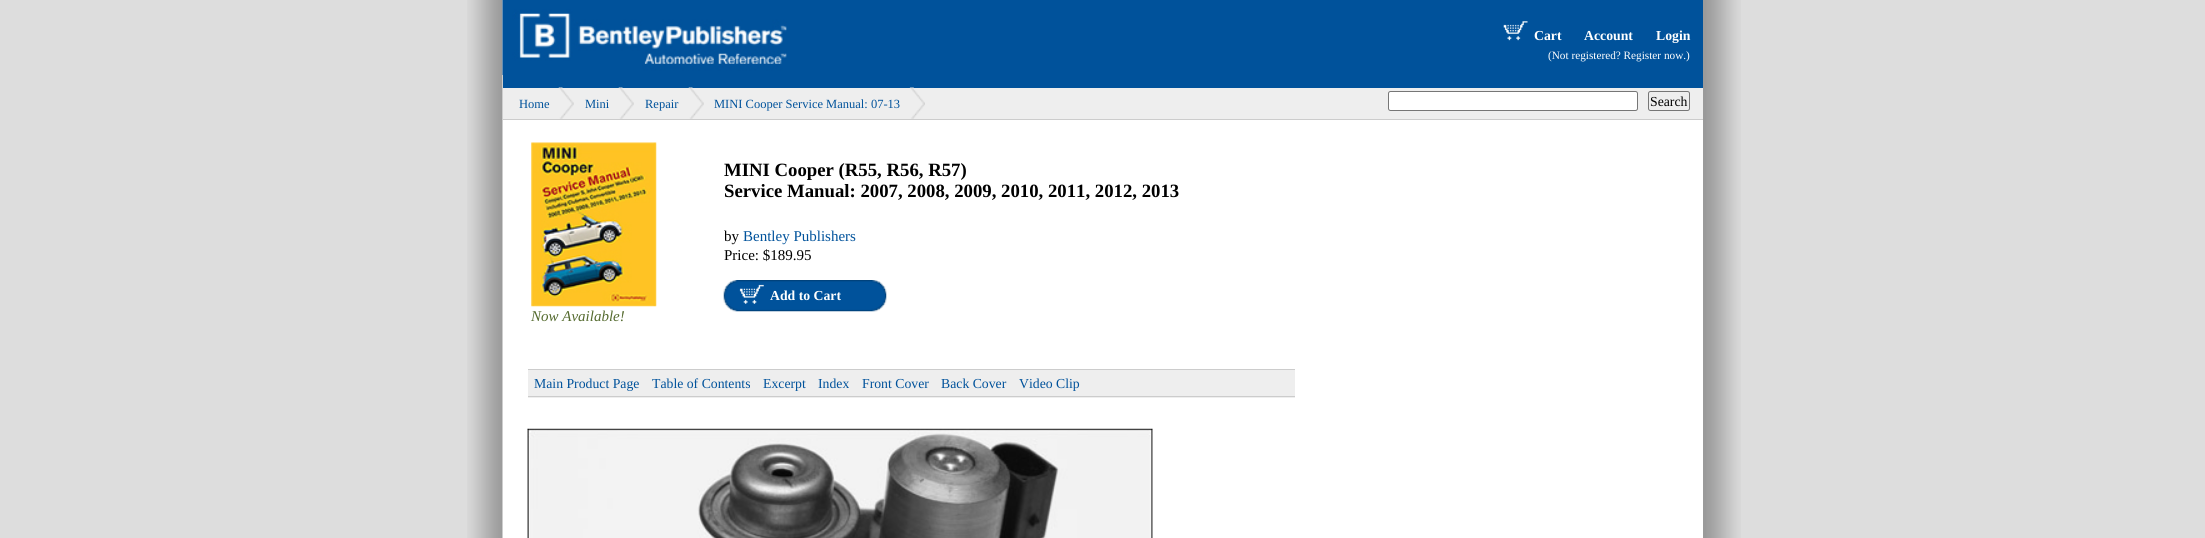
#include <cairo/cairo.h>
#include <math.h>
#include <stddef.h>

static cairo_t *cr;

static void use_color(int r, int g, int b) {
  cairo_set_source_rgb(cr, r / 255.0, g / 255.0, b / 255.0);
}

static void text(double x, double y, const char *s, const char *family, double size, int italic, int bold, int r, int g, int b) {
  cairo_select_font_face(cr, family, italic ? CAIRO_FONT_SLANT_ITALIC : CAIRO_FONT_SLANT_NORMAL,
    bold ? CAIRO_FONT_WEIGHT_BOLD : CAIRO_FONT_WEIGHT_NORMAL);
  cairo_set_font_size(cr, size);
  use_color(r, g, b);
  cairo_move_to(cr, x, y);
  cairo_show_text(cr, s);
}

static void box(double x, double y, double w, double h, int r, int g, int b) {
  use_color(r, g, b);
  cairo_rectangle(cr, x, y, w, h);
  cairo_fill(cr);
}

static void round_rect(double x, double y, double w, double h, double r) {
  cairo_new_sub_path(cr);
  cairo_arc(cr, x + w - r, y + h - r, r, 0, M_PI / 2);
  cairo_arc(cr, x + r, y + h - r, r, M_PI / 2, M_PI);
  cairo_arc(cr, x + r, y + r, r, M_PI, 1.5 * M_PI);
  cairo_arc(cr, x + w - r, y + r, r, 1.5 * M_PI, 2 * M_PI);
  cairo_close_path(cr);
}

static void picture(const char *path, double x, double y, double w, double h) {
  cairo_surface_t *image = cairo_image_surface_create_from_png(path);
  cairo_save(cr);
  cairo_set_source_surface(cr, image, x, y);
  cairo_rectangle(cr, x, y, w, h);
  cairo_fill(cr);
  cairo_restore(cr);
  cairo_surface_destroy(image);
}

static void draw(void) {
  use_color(221, 221, 221);
  cairo_paint(cr);
  picture("img_01.png", 467, 0, 1274, 538);
  box(1702, 120, 1, 418, 255, 255, 255);
  box(503, 0, 1200, 88, 0, 82, 155);
  picture("img_02.png", 502, 0, 285, 75);
  picture("img_03.png", 1503, 21, 25, 20);
  box(503, 88, 1200, 31, 238, 238, 238);
  box(503, 119, 1200, 1, 204, 204, 204);
  picture("img_04.png", 558, 87, 16, 32);
  picture("img_04.png", 618, 87, 16, 32);
  picture("img_04.png", 688, 87, 16, 32);
  picture("img_05.png", 909, 87, 16, 32);
  use_color(255, 255, 255);
  round_rect(1388.5, 91.5, 249, 19, 2);
  cairo_fill_preserve(cr);
  use_color(118, 118, 118);
  cairo_set_line_width(cr, 1);
  cairo_stroke(cr);
  round_rect(1648.5, 91.5, 41, 19, 2);
  cairo_stroke(cr);
  picture("img_06.png", 723, 280, 164, 32);
  picture("img_07.png", 739, 284, 25, 20);
  picture("img_08.png", 531, 142, 126, 165);
  box(528, 370, 767, 28, 238, 238, 238);
  box(528, 369, 767, 1, 204, 204, 204);
  box(528, 396, 767, 1, 204, 204, 204);
  picture("img_09.png", 527, 428, 626, 110);
  text(1534, 40, "Cart", "Liberation Serif", 13.75, 0, 1, 255, 255, 255);
  text(1584, 40, "Account", "Liberation Serif", 13.75, 0, 1, 255, 255, 255);
  text(1656, 40, "Login", "Liberation Serif", 13.75, 0, 1, 255, 255, 255);
  text(1548, 59, "(Not registered? Register now.)", "Liberation Serif", 11.25, 0, 0, 255, 255, 255);
  text(519, 108, "Home", "Liberation Serif", 12.5, 0, 0, 0, 82, 155);
  text(585, 108, "Mini", "Liberation Serif", 12.5, 0, 0, 0, 82, 155);
  text(645, 108, "Repair", "Liberation Serif", 12.5, 0, 0, 0, 82, 155);
  text(714, 108, "MINI Cooper Service Manual: 07-13", "Liberation Serif", 12.5, 0, 0, 0, 82, 155);
  text(1650, 106, "Search", "Liberation Serif", 13.75, 0, 0, 0, 0, 0);
  text(724, 176, "MINI Cooper (R55, R56, R57)", "Liberation Serif", 18.75, 0, 1, 0, 0, 0);
  text(724, 197, "Service Manual: 2007, 2008, 2009, 2010, 2011, 2012, 2013", "Liberation Serif", 18.75, 0, 1, 0, 0, 0);
  text(724, 241, "by", "Liberation Serif", 15, 0, 0, 0, 0, 0);
  text(743, 241, "Bentley Publishers", "Liberation Serif", 15, 0, 0, 0, 82, 155);
  text(724, 260, "Price: $189.95", "Liberation Serif", 15, 0, 0, 0, 0, 0);
  text(770, 300, "Add to Cart", "Liberation Serif", 13.75, 0, 1, 255, 255, 255);
  text(531, 321, "Now Available!", "Liberation Serif", 15, 1, 0, 85, 107, 47);
  text(534, 388, "Main Product Page", "Liberation Serif", 13.75, 0, 0, 0, 82, 155);
  text(652, 388, "Table of Contents", "Liberation Serif", 13.75, 0, 0, 0, 82, 155);
  text(763, 388, "Excerpt", "Liberation Serif", 13.75, 0, 0, 0, 82, 155);
  text(818, 388, "Index", "Liberation Serif", 13.75, 0, 0, 0, 82, 155);
  text(862, 388, "Front Cover", "Liberation Serif", 13.75, 0, 0, 0, 82, 155);
  text(941, 388, "Back Cover", "Liberation Serif", 13.75, 0, 0, 0, 82, 155);
  text(1019, 388, "Video Clip", "Liberation Serif", 13.75, 0, 0, 0, 82, 155);
}

int main(void) {
  cairo_surface_t *surface = cairo_image_surface_create(CAIRO_FORMAT_RGB24, 2205, 538);
  cr = cairo_create(surface);
  cairo_font_options_t *options = cairo_font_options_create();
  cairo_font_options_set_hint_metrics(options, CAIRO_HINT_METRICS_OFF);
  cairo_font_options_set_hint_style(options, CAIRO_HINT_STYLE_NONE);
  cairo_set_font_options(cr, options);
  cairo_set_miter_limit(cr, 4);
  draw();
  cairo_surface_write_to_png(surface, "out.png");
  cairo_font_options_destroy(options);
  cairo_destroy(cr);
  cairo_surface_destroy(surface);
  return 0;
}
